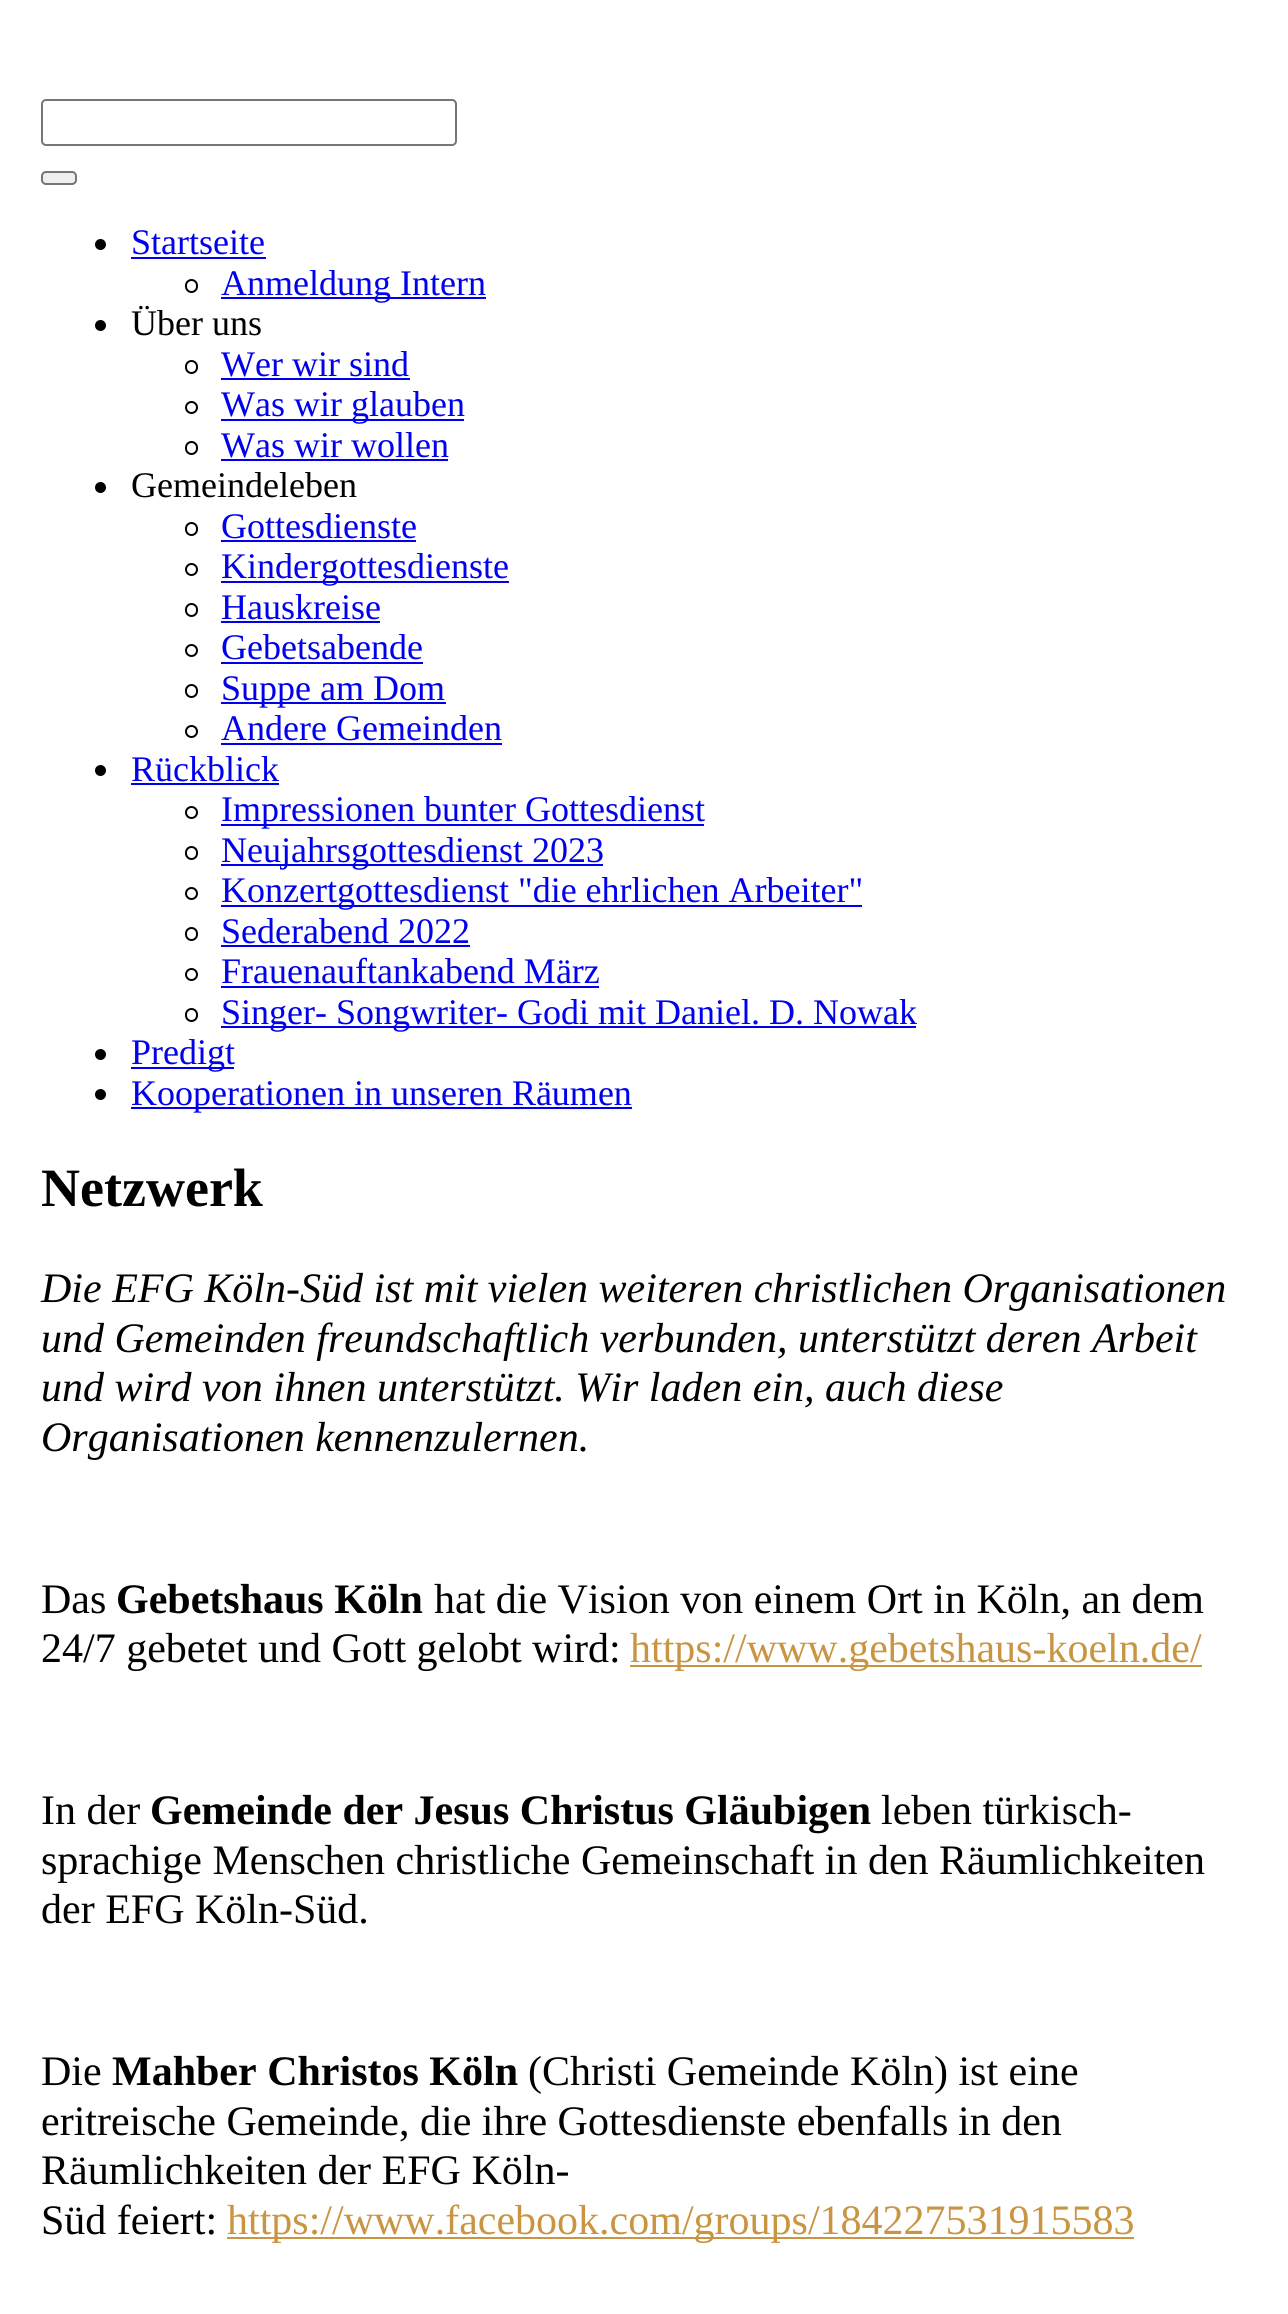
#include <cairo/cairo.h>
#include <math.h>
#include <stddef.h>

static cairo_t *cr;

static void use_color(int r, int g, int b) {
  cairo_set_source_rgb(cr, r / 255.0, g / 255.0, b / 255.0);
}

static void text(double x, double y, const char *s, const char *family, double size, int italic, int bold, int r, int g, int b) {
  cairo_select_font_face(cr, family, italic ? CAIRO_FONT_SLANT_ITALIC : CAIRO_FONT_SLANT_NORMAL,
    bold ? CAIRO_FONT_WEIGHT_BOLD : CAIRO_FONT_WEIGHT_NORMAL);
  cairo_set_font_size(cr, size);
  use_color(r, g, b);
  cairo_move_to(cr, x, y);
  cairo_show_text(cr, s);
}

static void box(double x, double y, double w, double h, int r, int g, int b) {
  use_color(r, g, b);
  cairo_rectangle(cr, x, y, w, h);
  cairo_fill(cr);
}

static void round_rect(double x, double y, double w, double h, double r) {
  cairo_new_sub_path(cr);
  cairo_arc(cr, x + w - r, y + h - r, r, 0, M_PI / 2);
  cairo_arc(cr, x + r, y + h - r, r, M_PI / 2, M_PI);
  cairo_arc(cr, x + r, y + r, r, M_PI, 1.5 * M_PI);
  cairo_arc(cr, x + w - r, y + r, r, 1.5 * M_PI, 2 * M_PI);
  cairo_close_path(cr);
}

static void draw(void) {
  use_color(255, 255, 255);
  cairo_paint(cr);
  round_rect(42, 100, 414, 45, 4);
  use_color(118, 118, 118);
  cairo_stroke(cr);
  use_color(239, 239, 239);
  round_rect(42, 172, 34, 12, 4);
  cairo_fill_preserve(cr);
  use_color(118, 118, 118);
  cairo_stroke(cr);
  use_color(0, 0, 0);
  cairo_arc(cr, 100.5, 244.5, 5.5, 0, 2 * M_PI);
  cairo_fill(cr);
  box(131, 257, 135, 2, 0, 0, 238);
  round_rect(186, 280, 11, 12, 5.5);
  use_color(0, 0, 0);
  cairo_stroke(cr);
  box(221, 297, 265, 2, 0, 0, 238);
  use_color(0, 0, 0);
  cairo_arc(cr, 100.5, 325.5, 5.5, 0, 2 * M_PI);
  cairo_fill(cr);
  round_rect(186, 361, 11, 12, 5.5);
  cairo_stroke(cr);
  box(221, 378, 189, 2, 0, 0, 238);
  cairo_arc(cr, 191.5, 407.5, 5.5, 0, 2 * M_PI);
  use_color(0, 0, 0);
  cairo_stroke(cr);
  box(221, 419, 243, 2, 0, 0, 238);
  round_rect(186, 442, 11, 12, 5.5);
  use_color(0, 0, 0);
  cairo_stroke(cr);
  box(221, 459, 227, 2, 0, 0, 238);
  use_color(0, 0, 0);
  cairo_arc(cr, 100.5, 487.5, 5.5, 0, 2 * M_PI);
  cairo_fill(cr);
  round_rect(186, 523, 11, 12, 5.5);
  cairo_stroke(cr);
  box(221, 540, 195, 2, 0, 0, 238);
  cairo_arc(cr, 191.5, 569.5, 5.5, 0, 2 * M_PI);
  use_color(0, 0, 0);
  cairo_stroke(cr);
  box(221, 581, 288, 2, 0, 0, 238);
  round_rect(186, 604, 11, 12, 5.5);
  use_color(0, 0, 0);
  cairo_stroke(cr);
  box(221, 621, 159, 2, 0, 0, 238);
  cairo_arc(cr, 191.5, 650.5, 5.5, 0, 2 * M_PI);
  use_color(0, 0, 0);
  cairo_stroke(cr);
  box(221, 662, 202, 2, 0, 0, 238);
  round_rect(186, 685, 11, 12, 5.5);
  use_color(0, 0, 0);
  cairo_stroke(cr);
  box(221, 702, 225, 2, 0, 0, 238);
  cairo_arc(cr, 191.5, 731.5, 5.5, 0, 2 * M_PI);
  use_color(0, 0, 0);
  cairo_stroke(cr);
  box(221, 743, 281, 2, 0, 0, 238);
  use_color(0, 0, 0);
  cairo_arc(cr, 100.5, 770.5, 5.5, 0, 2 * M_PI);
  cairo_fill(cr);
  box(131, 783, 148, 2, 0, 0, 238);
  cairo_arc(cr, 191.5, 812.5, 5.5, 0, 2 * M_PI);
  use_color(0, 0, 0);
  cairo_stroke(cr);
  box(221, 824, 483, 2, 0, 0, 238);
  round_rect(186, 847, 11, 12, 5.5);
  use_color(0, 0, 0);
  cairo_stroke(cr);
  box(221, 864, 382, 2, 0, 0, 238);
  cairo_arc(cr, 191.5, 893.5, 5.5, 0, 2 * M_PI);
  use_color(0, 0, 0);
  cairo_stroke(cr);
  box(221, 905, 641, 2, 0, 0, 238);
  round_rect(186, 928, 11, 12, 5.5);
  use_color(0, 0, 0);
  cairo_stroke(cr);
  box(221, 945, 249, 2, 0, 0, 238);
  cairo_arc(cr, 191.5, 974.5, 5.5, 0, 2 * M_PI);
  use_color(0, 0, 0);
  cairo_stroke(cr);
  box(221, 986, 378, 2, 0, 0, 238);
  round_rect(186, 1009, 11, 12, 5.5);
  use_color(0, 0, 0);
  cairo_stroke(cr);
  box(221, 1026, 695, 2, 0, 0, 238);
  use_color(0, 0, 0);
  cairo_arc(cr, 100.5, 1054.5, 5.5, 0, 2 * M_PI);
  cairo_fill(cr);
  box(131, 1067, 103, 2, 0, 0, 238);
  use_color(0, 0, 0);
  cairo_arc(cr, 100.5, 1094.5, 5.5, 0, 2 * M_PI);
  cairo_fill(cr);
  box(131, 1107, 501, 2, 0, 0, 238);
  box(630, 1665, 572, 2, 201, 149, 66);
  box(227, 2237, 907, 2, 201, 149, 66);
  text(131, 254, "Startseite", "Liberation Serif", 36, 0, 0, 0, 0, 238);
  text(221, 295, "Anmeldung Intern", "Liberation Serif", 36, 0, 0, 0, 0, 238);
  text(131, 335, "Über uns", "Liberation Serif", 36, 0, 0, 0, 0, 0);
  text(221, 376, "Wer wir sind", "Liberation Serif", 36, 0, 0, 0, 0, 238);
  text(221, 416, "Was wir glauben", "Liberation Serif", 36, 0, 0, 0, 0, 238);
  text(221, 457, "Was wir wollen", "Liberation Serif", 36, 0, 0, 0, 0, 238);
  text(131, 497, "Gemeindeleben", "Liberation Serif", 36, 0, 0, 0, 0, 0);
  text(221, 538, "Gottesdienste", "Liberation Serif", 36, 0, 0, 0, 0, 238);
  text(221, 578, "Kindergottesdienste", "Liberation Serif", 36, 0, 0, 0, 0, 238);
  text(221, 619, "Hauskreise", "Liberation Serif", 36, 0, 0, 0, 0, 238);
  text(221, 659, "Gebetsabende", "Liberation Serif", 36, 0, 0, 0, 0, 238);
  text(221, 700, "Suppe am Dom", "Liberation Serif", 36, 0, 0, 0, 0, 238);
  text(221, 740, "Andere Gemeinden", "Liberation Serif", 36, 0, 0, 0, 0, 238);
  text(131, 781, "Rückblick", "Liberation Serif", 36, 0, 0, 0, 0, 238);
  text(221, 821, "Impressionen bunter Gottesdienst", "Liberation Serif", 36, 0, 0, 0, 0, 238);
  text(221, 862, "Neujahrsgottesdienst 2023", "Liberation Serif", 36, 0, 0, 0, 0, 238);
  text(221, 902, "Konzertgottesdienst \"die ehrlichen Arbeiter\"", "Liberation Serif", 36, 0, 0, 0, 0, 238);
  text(221, 943, "Sederabend 2022", "Liberation Serif", 36, 0, 0, 0, 0, 238);
  text(221, 983, "Frauenauftankabend März", "Liberation Serif", 36, 0, 0, 0, 0, 238);
  text(221, 1024, "Singer- Songwriter- Godi mit Daniel. D. Nowak", "Liberation Serif", 36, 0, 0, 0, 0, 238);
  text(131, 1064, "Predigt", "Liberation Serif", 36, 0, 0, 0, 0, 238);
  text(131, 1105, "Kooperationen in unseren Räumen", "Liberation Serif", 36, 0, 0, 0, 0, 238);
  text(41, 1206, "Netzwerk", "Liberation Serif", 54, 0, 1, 0, 0, 0);
  text(41, 1302, "Die EFG Köln-Süd ist mit vielen weiteren christlichen Organisationen", "Liberation Serif", 42, 1, 0, 0, 0, 0);
  text(41, 1352, "und Gemeinden freundschaftlich verbunden, unterstützt deren Arbeit", "Liberation Serif", 42, 1, 0, 0, 0, 0);
  text(41, 1401, "und wird von ihnen unterstützt. Wir laden ein, auch diese", "Liberation Serif", 42, 1, 0, 0, 0, 0);
  text(41, 1451, "Organisationen kennenzulernen.", "Liberation Serif", 42, 1, 0, 0, 0, 0);
  text(41, 1613, "Das", "Liberation Serif", 42, 0, 0, 0, 0, 0);
  text(116, 1613, "Gebetshaus Köln", "Liberation Serif", 42, 0, 1, 0, 0, 0);
  text(434, 1613, "hat die Vision von einem Ort in Köln, an dem", "Liberation Serif", 42, 0, 0, 0, 0, 0);
  text(41, 1662, "24/7 gebetet und Gott gelobt wird:", "Liberation Serif", 42, 0, 0, 0, 0, 0);
  text(630, 1662, "https://www.gebetshaus-koeln.de/", "Liberation Serif", 42, 0, 0, 201, 149, 66);
  text(41, 1824, "In der", "Liberation Serif", 42, 0, 0, 0, 0, 0);
  text(150, 1824, "Gemeinde der Jesus Christus Gläubigen", "Liberation Serif", 42, 0, 1, 0, 0, 0);
  text(881, 1824, "leben türkisch-", "Liberation Serif", 42, 0, 0, 0, 0, 0);
  text(41, 1874, "sprachige Menschen christliche Gemeinschaft in den Räumlichkeiten", "Liberation Serif", 42, 0, 0, 0, 0, 0);
  text(41, 1923, "der EFG Köln-Süd.", "Liberation Serif", 42, 0, 0, 0, 0, 0);
  text(41, 2085, "Die", "Liberation Serif", 42, 0, 0, 0, 0, 0);
  text(112, 2085, "Mahber Christos Köln", "Liberation Serif", 42, 0, 1, 0, 0, 0);
  text(528, 2085, "(Christi Gemeinde Köln) ist eine", "Liberation Serif", 42, 0, 0, 0, 0, 0);
  text(41, 2135, "eritreische Gemeinde, die ihre Gottesdienste ebenfalls", "Liberation Serif", 42, 0, 0, 0, 0, 0);
  text(958, 2135, "in den", "Liberation Serif", 42, 0, 0, 0, 0, 0);
  text(41, 2184, "Räumlichkeiten der EFG Köln-", "Liberation Serif", 42, 0, 0, 0, 0, 0);
  text(41, 2234, "Süd feiert:", "Liberation Serif", 42, 0, 0, 0, 0, 0);
  text(227, 2234, "https://www.facebook.com/groups/184227531915583", "Liberation Serif", 42, 0, 0, 201, 149, 66);
}

int main(void) {
  cairo_surface_t *surface = cairo_image_surface_create(CAIRO_FORMAT_RGB24, 1288, 2314);
  cr = cairo_create(surface);
  cairo_font_options_t *options = cairo_font_options_create();
  cairo_font_options_set_hint_metrics(options, CAIRO_HINT_METRICS_OFF);
  cairo_font_options_set_hint_style(options, CAIRO_HINT_STYLE_NONE);
  cairo_set_font_options(cr, options);
  cairo_set_miter_limit(cr, 4);
  draw();
  cairo_surface_write_to_png(surface, "out.png");
  cairo_font_options_destroy(options);
  cairo_destroy(cr);
  cairo_surface_destroy(surface);
  return 0;
}
